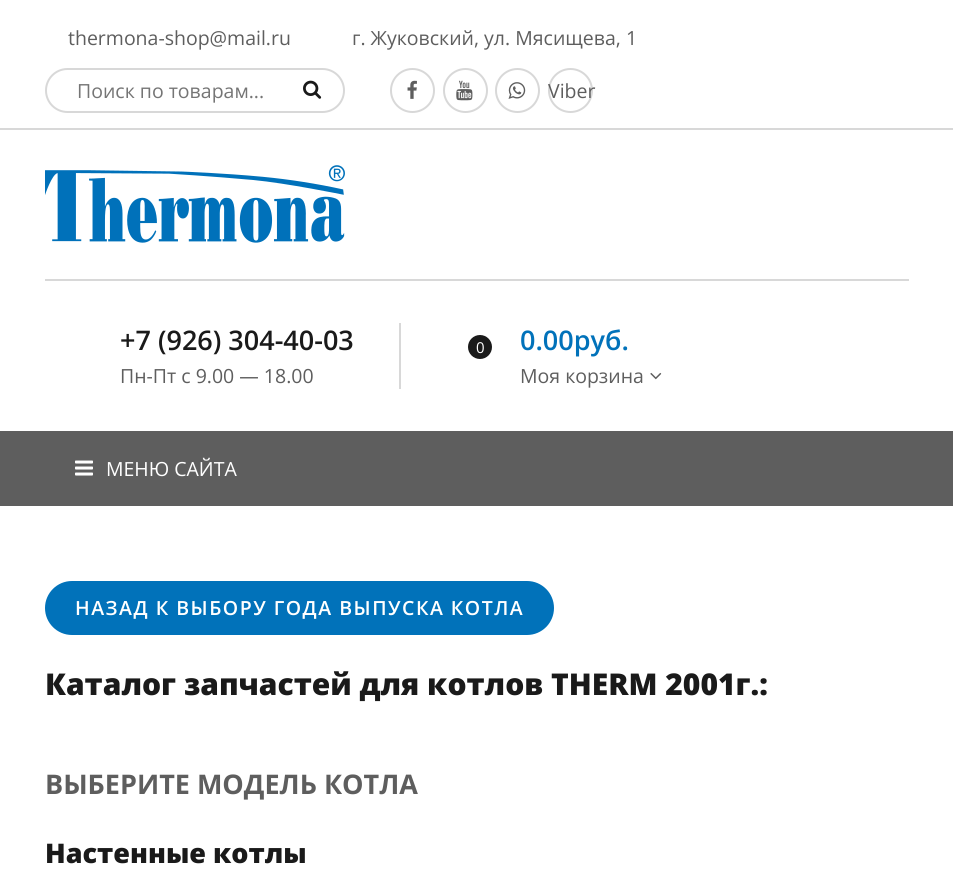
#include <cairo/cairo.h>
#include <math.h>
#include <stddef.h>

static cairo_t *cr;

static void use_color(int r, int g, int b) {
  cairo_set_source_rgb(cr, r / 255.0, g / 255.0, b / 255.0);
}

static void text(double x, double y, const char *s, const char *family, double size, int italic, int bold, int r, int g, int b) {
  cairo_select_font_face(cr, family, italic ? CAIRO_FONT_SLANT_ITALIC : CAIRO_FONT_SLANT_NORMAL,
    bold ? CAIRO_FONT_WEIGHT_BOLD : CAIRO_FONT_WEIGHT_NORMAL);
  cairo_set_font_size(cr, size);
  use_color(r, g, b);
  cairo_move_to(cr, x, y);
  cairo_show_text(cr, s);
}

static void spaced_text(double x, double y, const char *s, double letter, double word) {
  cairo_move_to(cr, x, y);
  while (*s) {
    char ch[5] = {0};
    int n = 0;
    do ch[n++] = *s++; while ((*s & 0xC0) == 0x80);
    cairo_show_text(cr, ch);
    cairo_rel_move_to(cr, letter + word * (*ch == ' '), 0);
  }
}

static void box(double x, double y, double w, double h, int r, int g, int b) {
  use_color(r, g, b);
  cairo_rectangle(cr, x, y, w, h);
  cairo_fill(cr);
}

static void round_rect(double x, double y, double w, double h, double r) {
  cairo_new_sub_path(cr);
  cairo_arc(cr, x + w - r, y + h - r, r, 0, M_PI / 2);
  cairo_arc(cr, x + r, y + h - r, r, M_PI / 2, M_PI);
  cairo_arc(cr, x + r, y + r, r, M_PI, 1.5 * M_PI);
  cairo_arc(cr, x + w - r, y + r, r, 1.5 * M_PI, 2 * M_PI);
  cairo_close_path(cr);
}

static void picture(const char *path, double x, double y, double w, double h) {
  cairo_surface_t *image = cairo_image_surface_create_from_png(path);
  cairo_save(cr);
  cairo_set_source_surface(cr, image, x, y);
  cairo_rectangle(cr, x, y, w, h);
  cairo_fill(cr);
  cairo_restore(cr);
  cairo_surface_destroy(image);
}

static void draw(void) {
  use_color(255, 255, 255);
  cairo_paint(cr);
  box(0, 128, 953, 2, 216, 216, 216);
  round_rect(46, 69, 298, 43, 21.5);
  cairo_stroke(cr);
  picture("img_01.png", 303, 80, 19, 19);
  cairo_arc(cr, 412.5, 90.5, 21.5, 0, 2 * M_PI);
  cairo_stroke(cr);
  picture("img_02.png", 407, 80, 10, 19);
  cairo_arc(cr, 465.5, 90.5, 21.5, 0, 2 * M_PI);
  cairo_stroke(cr);
  picture("img_03.png", 456, 80, 17, 21);
  cairo_arc(cr, 517.5, 90.5, 21.5, 0, 2 * M_PI);
  cairo_stroke(cr);
  picture("img_04.png", 508, 82, 18, 17);
  cairo_arc(cr, 570.5, 90.5, 21.5, 0, 2 * M_PI);
  cairo_stroke(cr);
  box(45, 279, 864, 2, 216, 216, 216);
  picture("img_05.png", 45, 165, 300, 78);
  box(399, 323, 2, 66, 216, 216, 216);
  use_color(26, 26, 26);
  cairo_arc(cr, 480, 347, 12, 0, 2 * M_PI);
  cairo_fill(cr);
  picture("img_06.png", 650, 372, 12, 8);
  box(0, 431, 953, 75, 94, 94, 94);
  picture("img_07.png", 75, 460, 18, 16);
  use_color(1, 114, 186);
  round_rect(45, 581, 509, 54, 27);
  cairo_fill(cr);
  text(68, 45, "thermona-shop@mail.ru", "Open Sans", 19.5, 0, 0, 94, 94, 94);
  text(352, 45, "г. Жуковский, ул. Мясищева, 1", "Open Sans", 19.5, 0, 0, 94, 94, 94);
  text(77, 98, "Поиск по товарам...", "Open Sans", 19.5, 0, 0, 117, 117, 117);
  text(548, 98, "Viber", "Open Sans", 19.5, 0, 0, 94, 94, 94);
  text(120, 350, "+7 (926) 304-40-03", "Open Sans SemiBold", 27, 0, 0, 26, 26, 26);
  text(120, 383, "Пн-Пт с 9.00 — 18.00", "Open Sans", 19.5, 0, 0, 94, 94, 94);
  text(476, 353, "0", "Open Sans", 15, 0, 0, 255, 255, 255);
  text(520, 350, "0.00руб.", "Open Sans SemiBold", 27, 0, 0, 1, 114, 186);
  text(520, 383, "Моя корзина", "Open Sans", 19.5, 0, 0, 94, 94, 94);
  text(106, 476, "МЕНЮ САЙТА", "Open Sans", 19.5, 0, 0, 255, 255, 255);
  cairo_select_font_face(cr, "Open Sans SemiBold", CAIRO_FONT_SLANT_NORMAL, CAIRO_FONT_WEIGHT_NORMAL);
  spaced_text(75, 615, "НАЗАД К ВЫБОРУ ГОДА ВЫПУСКА КОТЛА", 1.5, 0);
  text(45, 695, "Каталог запчастей для котлов THERM 2001г.:", "Open Sans ExtraBold", 30, 0, 0, 26, 26, 26);
  text(45, 794, "ВЫБЕРИТЕ МОДЕЛЬ КОТЛА", "Open Sans", 27, 0, 1, 94, 94, 94);
  text(45, 863, "Настенные котлы", "Open Sans ExtraBold", 27, 0, 0, 26, 26, 26);
}

int main(void) {
  cairo_surface_t *surface = cairo_image_surface_create(CAIRO_FORMAT_RGB24, 953, 875);
  cr = cairo_create(surface);
  cairo_font_options_t *options = cairo_font_options_create();
  cairo_font_options_set_hint_metrics(options, CAIRO_HINT_METRICS_OFF);
  cairo_font_options_set_hint_style(options, CAIRO_HINT_STYLE_NONE);
  cairo_set_font_options(cr, options);
  cairo_set_miter_limit(cr, 4);
  draw();
  cairo_surface_write_to_png(surface, "out.png");
  cairo_font_options_destroy(options);
  cairo_destroy(cr);
  cairo_surface_destroy(surface);
  return 0;
}
